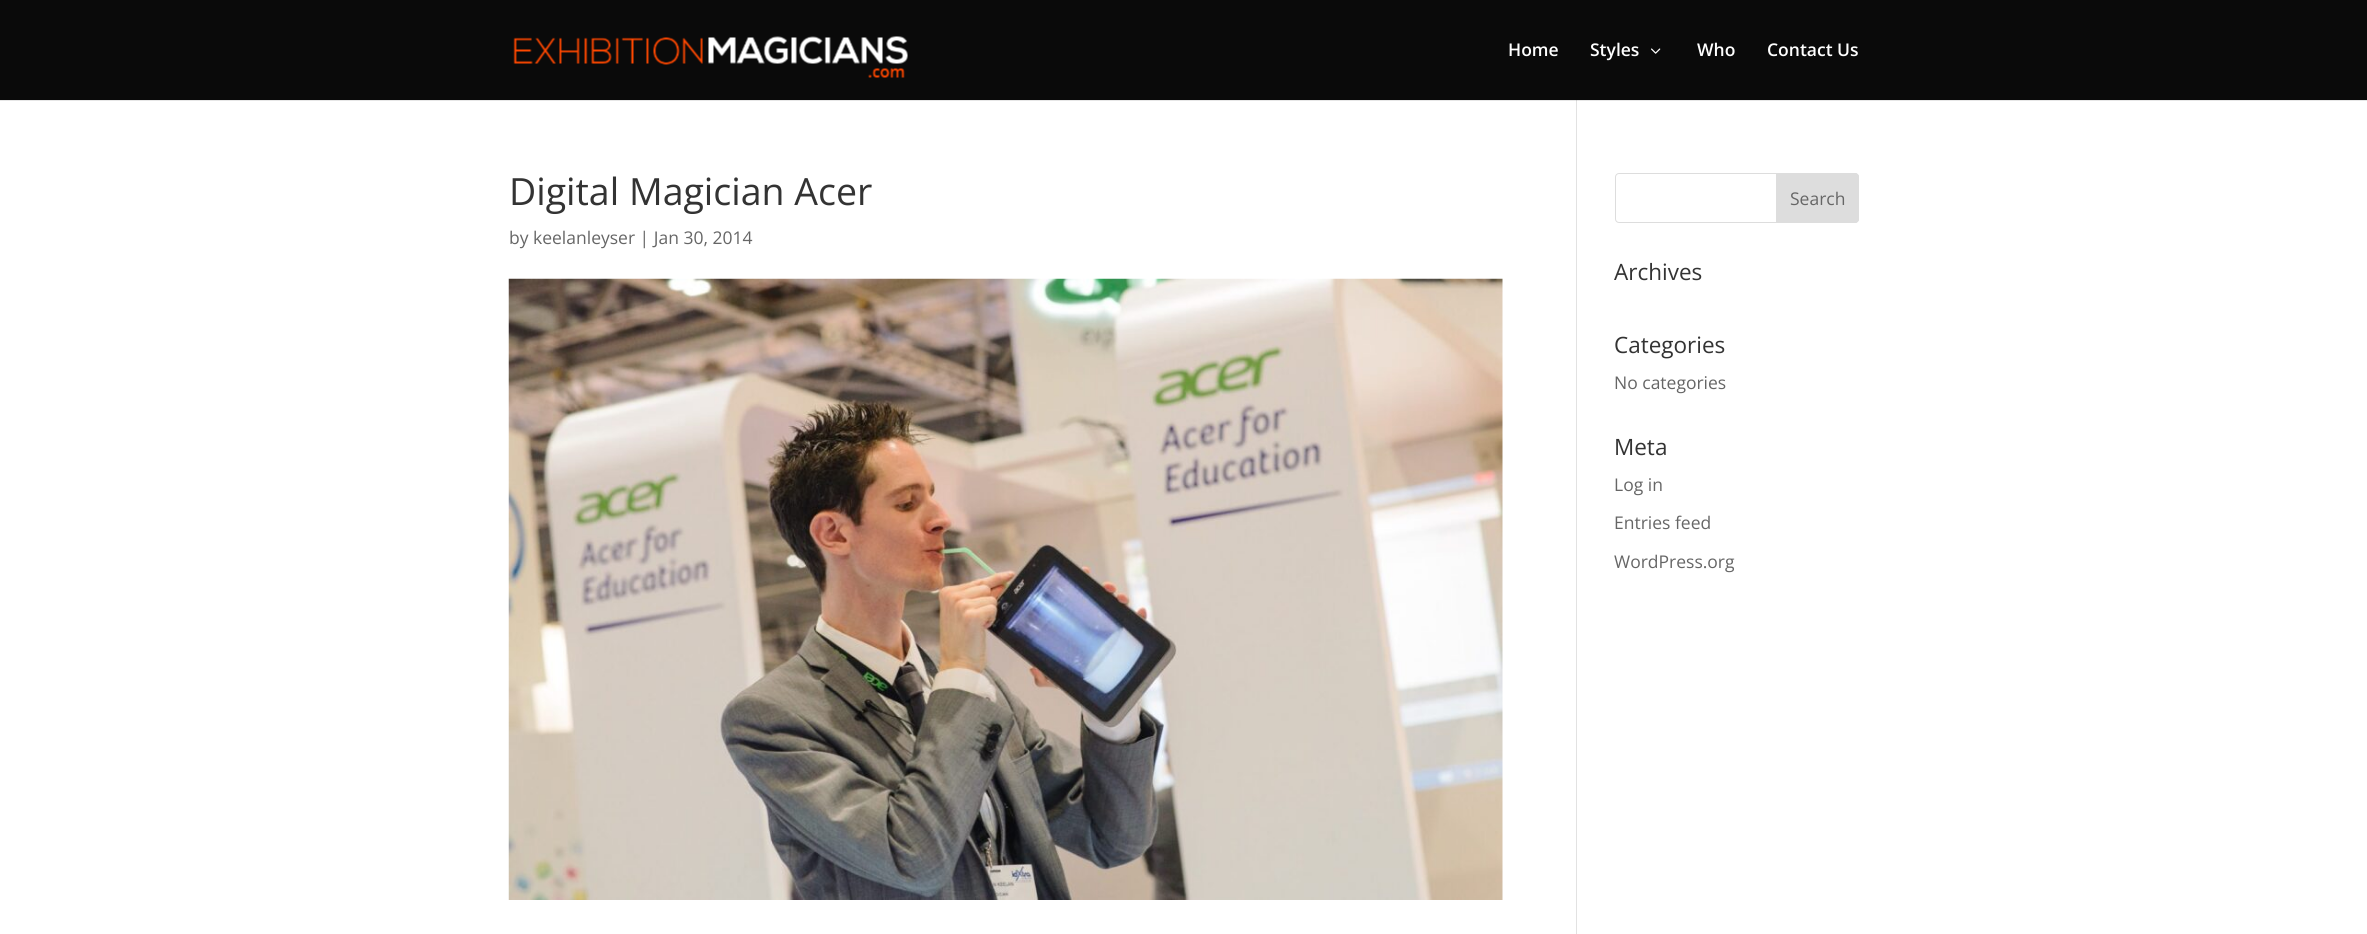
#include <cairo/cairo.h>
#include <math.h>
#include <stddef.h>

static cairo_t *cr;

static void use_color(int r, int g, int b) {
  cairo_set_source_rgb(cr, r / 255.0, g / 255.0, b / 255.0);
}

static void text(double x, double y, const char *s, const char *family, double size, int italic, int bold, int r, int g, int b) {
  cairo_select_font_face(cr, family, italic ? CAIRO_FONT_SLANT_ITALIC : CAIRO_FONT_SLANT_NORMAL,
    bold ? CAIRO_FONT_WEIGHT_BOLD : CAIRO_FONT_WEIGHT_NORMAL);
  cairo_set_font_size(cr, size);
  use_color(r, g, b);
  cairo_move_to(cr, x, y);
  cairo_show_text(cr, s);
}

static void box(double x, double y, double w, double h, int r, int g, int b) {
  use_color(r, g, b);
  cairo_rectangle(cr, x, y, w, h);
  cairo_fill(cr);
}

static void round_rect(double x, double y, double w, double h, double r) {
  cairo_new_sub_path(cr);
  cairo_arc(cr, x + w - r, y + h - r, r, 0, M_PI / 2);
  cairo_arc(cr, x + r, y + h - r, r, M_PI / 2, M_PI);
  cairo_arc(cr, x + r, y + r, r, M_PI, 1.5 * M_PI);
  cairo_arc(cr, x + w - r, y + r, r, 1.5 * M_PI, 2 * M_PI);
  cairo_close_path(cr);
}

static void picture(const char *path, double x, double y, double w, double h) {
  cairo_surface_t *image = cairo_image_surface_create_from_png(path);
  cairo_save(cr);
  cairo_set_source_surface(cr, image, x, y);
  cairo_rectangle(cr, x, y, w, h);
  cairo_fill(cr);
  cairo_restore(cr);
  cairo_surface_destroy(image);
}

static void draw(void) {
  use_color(255, 255, 255);
  cairo_paint(cr);
  box(1576, 100, 1, 834, 226, 226, 226);
  cairo_set_source_rgba(cr, 0, 0, 0, 0.1);
  cairo_new_path(cr);
  cairo_move_to(cr, 0, 100);
  cairo_line_to(cr, 0, 101);
  cairo_line_to(cr, 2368, 101);
  cairo_line_to(cr, 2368, 1);
  cairo_line_to(cr, 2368, 100);
  cairo_close_path(cr);
  cairo_fill(cr);
  box(0, 0, 2367, 100, 10, 10, 10);
  picture("img_01.png", 513, 36, 395, 42);
  picture("img_02.png", 1651, 48, 10, 6);
  picture("img_03.png", 508, 278, 995, 622);
  round_rect(1615.5, 173.5, 243, 49, 3.5);
  use_color(221, 221, 221);
  cairo_set_line_width(cr, 1);
  cairo_stroke(cr);
  cairo_new_path(cr);
  cairo_move_to(cr, 1776.5, 173.5);
  cairo_line_to(cr, 1855, 173.5);
  cairo_curve_to(cr, 1857, 173.5, 1858.5, 175, 1858.5, 177);
  cairo_line_to(cr, 1858.5, 219);
  cairo_curve_to(cr, 1858.5, 221, 1857, 222.5, 1855, 222.5);
  cairo_line_to(cr, 1776.5, 222.5);
  cairo_close_path(cr);
  cairo_fill_preserve(cr);
  cairo_stroke(cr);
  text(1508, 56, "Home", "Open Sans SemiBold", 17.5, 0, 0, 255, 255, 255);
  text(1590, 56, "Styles", "Open Sans SemiBold", 17.5, 0, 0, 255, 255, 255);
  text(1697, 56, "Who", "Open Sans SemiBold", 17.5, 0, 0, 255, 255, 255);
  text(1767, 56, "Contact Us", "Open Sans SemiBold", 17.5, 0, 0, 255, 255, 255);
  text(509, 205, "Digital Magician Acer", "Open Sans", 37.5, 0, 0, 51, 51, 51);
  text(509, 244, "by keelanleyser | Jan 30, 2014", "Open Sans", 17.5, 0, 0, 102, 102, 102);
  text(1790, 205, "Search", "Open Sans", 17.5, 0, 0, 102, 102, 102);
  text(1614, 280, "Archives", "Open Sans", 22.5, 0, 0, 51, 51, 51);
  text(1614, 353, "Categories", "Open Sans", 22.5, 0, 0, 51, 51, 51);
  text(1614, 389, "No categories", "Open Sans", 17.5, 0, 0, 102, 102, 102);
  text(1614, 455, "Meta", "Open Sans", 22.5, 0, 0, 51, 51, 51);
  text(1614, 491, "Log in", "Open Sans", 17.5, 0, 0, 102, 102, 102);
  text(1614, 529, "Entries feed", "Open Sans", 17.5, 0, 0, 102, 102, 102);
  text(1614, 568, "WordPress.org", "Open Sans", 17.5, 0, 0, 102, 102, 102);
}

int main(void) {
  cairo_surface_t *surface = cairo_image_surface_create(CAIRO_FORMAT_RGB24, 2367, 934);
  cr = cairo_create(surface);
  cairo_font_options_t *options = cairo_font_options_create();
  cairo_font_options_set_hint_metrics(options, CAIRO_HINT_METRICS_OFF);
  cairo_font_options_set_hint_style(options, CAIRO_HINT_STYLE_NONE);
  cairo_set_font_options(cr, options);
  cairo_set_miter_limit(cr, 4);
  draw();
  cairo_surface_write_to_png(surface, "out.png");
  cairo_font_options_destroy(options);
  cairo_destroy(cr);
  cairo_surface_destroy(surface);
  return 0;
}
